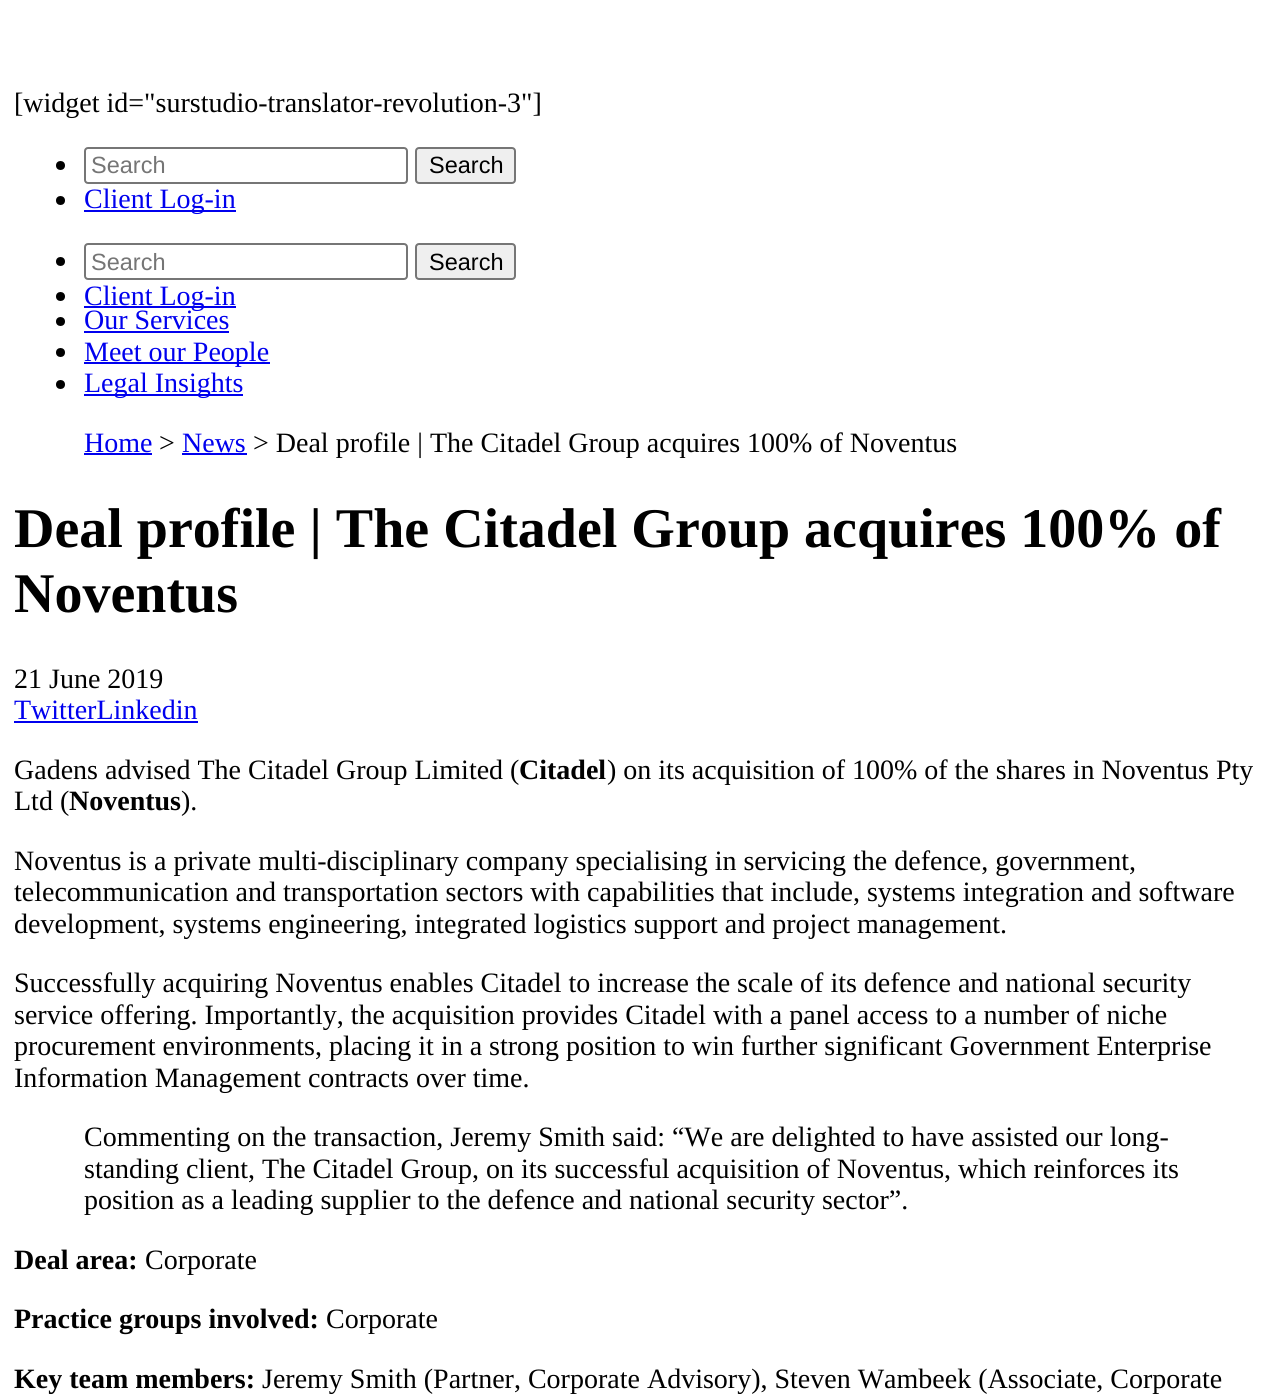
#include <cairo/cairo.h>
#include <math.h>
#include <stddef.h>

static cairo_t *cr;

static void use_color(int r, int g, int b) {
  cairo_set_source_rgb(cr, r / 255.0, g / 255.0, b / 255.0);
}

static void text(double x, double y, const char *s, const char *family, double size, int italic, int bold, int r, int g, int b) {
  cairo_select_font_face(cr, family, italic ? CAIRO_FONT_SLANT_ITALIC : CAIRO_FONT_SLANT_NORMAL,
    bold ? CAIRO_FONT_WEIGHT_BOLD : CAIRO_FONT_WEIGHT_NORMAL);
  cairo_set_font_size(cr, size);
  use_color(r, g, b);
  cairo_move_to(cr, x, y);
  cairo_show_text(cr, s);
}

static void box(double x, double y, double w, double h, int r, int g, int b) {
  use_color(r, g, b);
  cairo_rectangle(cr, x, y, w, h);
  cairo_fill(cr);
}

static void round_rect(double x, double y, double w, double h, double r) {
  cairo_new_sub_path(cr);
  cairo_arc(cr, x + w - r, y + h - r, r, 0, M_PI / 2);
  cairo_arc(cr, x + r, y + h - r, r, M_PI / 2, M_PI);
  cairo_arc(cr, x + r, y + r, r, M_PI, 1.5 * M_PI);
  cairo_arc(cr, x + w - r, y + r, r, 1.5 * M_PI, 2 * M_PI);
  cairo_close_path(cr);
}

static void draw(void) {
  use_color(255, 255, 255);
  cairo_paint(cr);
  use_color(0, 0, 0);
  cairo_arc(cr, 60.5, 165.5, 4.5, 0, 2 * M_PI);
  cairo_fill(cr);
  round_rect(85, 148, 322, 35, 3);
  use_color(118, 118, 118);
  cairo_stroke(cr);
  use_color(239, 239, 239);
  round_rect(416, 148, 99, 35, 3);
  cairo_fill_preserve(cr);
  use_color(118, 118, 118);
  cairo_stroke(cr);
  use_color(0, 0, 0);
  cairo_arc(cr, 60.5, 200.5, 4.5, 0, 2 * M_PI);
  cairo_fill(cr);
  box(84, 210, 152, 2, 0, 0, 238);
  use_color(0, 0, 0);
  cairo_arc(cr, 60.5, 261.5, 4.5, 0, 2 * M_PI);
  cairo_fill(cr);
  round_rect(85, 244, 322, 35, 3);
  use_color(118, 118, 118);
  cairo_stroke(cr);
  use_color(239, 239, 239);
  round_rect(416, 244, 99, 35, 3);
  cairo_fill_preserve(cr);
  use_color(118, 118, 118);
  cairo_stroke(cr);
  use_color(0, 0, 0);
  cairo_arc(cr, 60.5, 296.5, 4.5, 0, 2 * M_PI);
  cairo_fill(cr);
  box(84, 306, 152, 2, 0, 0, 238);
  use_color(0, 0, 0);
  cairo_arc(cr, 60.5, 321.5, 4.5, 0, 2 * M_PI);
  cairo_fill(cr);
  box(84, 331, 145, 2, 0, 0, 238);
  use_color(0, 0, 0);
  cairo_arc(cr, 60.5, 352.5, 4.5, 0, 2 * M_PI);
  cairo_fill(cr);
  box(84, 362, 186, 2, 0, 0, 238);
  use_color(0, 0, 0);
  cairo_arc(cr, 60.5, 384.5, 4.5, 0, 2 * M_PI);
  cairo_fill(cr);
  box(84, 394, 159, 2, 0, 0, 238);
  box(84, 453, 68, 2, 0, 0, 238);
  box(182, 453, 65, 2, 0, 0, 238);
  box(14, 721, 184, 2, 0, 0, 238);
  text(14, 112, "[widget id=\"surstudio-translator-revolution-3\"]", "Liberation Serif", 28, 0, 0, 0, 0, 0);
  text(91, 173, "Search", "Liberation Sans", 23.5, 0, 0, 117, 117, 117);
  text(429, 173, "Search", "Liberation Sans", 23.5, 0, 0, 0, 0, 0);
  text(84, 208, "Client Log-in", "Liberation Serif", 28, 0, 0, 0, 0, 238);
  text(91, 270, "Search", "Liberation Sans", 23.5, 0, 0, 117, 117, 117);
  text(429, 270, "Search", "Liberation Sans", 23.5, 0, 0, 0, 0, 0);
  text(84, 305, "Client Log-in", "Liberation Serif", 28, 0, 0, 0, 0, 238);
  text(84, 329, "Our Services", "Liberation Serif", 28, 0, 0, 0, 0, 238);
  text(84, 361, "Meet our People", "Liberation Serif", 28, 0, 0, 0, 0, 238);
  text(84, 392, "Legal Insights", "Liberation Serif", 28, 0, 0, 0, 0, 238);
  text(84, 452, "Home", "Liberation Serif", 28, 0, 0, 0, 0, 238);
  text(159, 452, ">", "Liberation Serif", 28, 0, 0, 0, 0, 0);
  text(182, 452, "News", "Liberation Serif", 28, 0, 0, 0, 0, 238);
  text(253, 452, "> Deal profile | The Citadel Group acquires 100% of Noventus", "Liberation Serif", 28, 0, 0, 0, 0, 0);
  text(14, 547, "Deal profile | The Citadel Group acquires 100% of", "Liberation Serif", 56, 0, 1, 0, 0, 0);
  text(14, 612, "Noventus", "Liberation Serif", 56, 0, 1, 0, 0, 0);
  text(14, 688, "21 June 2019", "Liberation Serif", 28, 0, 0, 0, 0, 0);
  text(14, 719, "TwitterLinkedin", "Liberation Serif", 28, 0, 0, 0, 0, 238);
  text(14, 779, "Gadens advised The Citadel Group Limited (", "Liberation Serif", 28, 0, 0, 0, 0, 0);
  text(519, 779, "Citadel", "Liberation Serif", 28, 0, 1, 0, 0, 0);
  text(607, 779, ") on its acquisition of 100% of the shares in Noventus Pty", "Liberation Serif", 28, 0, 0, 0, 0, 0);
  text(14, 810, "Ltd (", "Liberation Serif", 28, 0, 0, 0, 0, 0);
  text(69, 810, "Noventus", "Liberation Serif", 28, 0, 1, 0, 0, 0);
  text(181, 810, ").", "Liberation Serif", 28, 0, 0, 0, 0, 0);
  text(14, 870, "Noventus is a private multi-disciplinary company specialising in servicing the defence, government,", "Liberation Serif", 28, 0, 0, 0, 0, 0);
  text(14, 901, "telecommunication and transportation sectors with capabilities that include, systems integration and software", "Liberation Serif", 28, 0, 0, 0, 0, 0);
  text(14, 933, "development, systems engineering, integrated logistics support and project management.", "Liberation Serif", 28, 0, 0, 0, 0, 0);
  text(14, 992, "Successfully acquiring Noventus enables Citadel to increase the scale of its defence and national security", "Liberation Serif", 28, 0, 0, 0, 0, 0);
  text(14, 1024, "service offering. Importantly, the acquisition provides Citadel with a panel access to a number of niche", "Liberation Serif", 28, 0, 0, 0, 0, 0);
  text(14, 1055, "procurement environments, placing it in a strong position to win further significant Government Enterprise", "Liberation Serif", 28, 0, 0, 0, 0, 0);
  text(14, 1087, "Information Management contracts over time.", "Liberation Serif", 28, 0, 0, 0, 0, 0);
  text(84, 1146, "Commenting on the transaction, Jeremy Smith said: “We are delighted to have assisted our long-", "Liberation Serif", 28, 0, 0, 0, 0, 0);
  text(84, 1178, "standing client, The Citadel Group, on its successful acquisition of Noventus, which reinforces its", "Liberation Serif", 28, 0, 0, 0, 0, 0);
  text(84, 1209, "position as a leading supplier to the defence and national security sector”.", "Liberation Serif", 28, 0, 0, 0, 0, 0);
  text(14, 1269, "Deal area:", "Liberation Serif", 28, 0, 1, 0, 0, 0);
  text(145, 1269, "Corporate", "Liberation Serif", 28, 0, 0, 0, 0, 0);
  text(14, 1328, "Practice groups involved:", "Liberation Serif", 28, 0, 1, 0, 0, 0);
  text(326, 1328, "Corporate", "Liberation Serif", 28, 0, 0, 0, 0, 0);
  text(14, 1388, "Key team members:", "Liberation Serif", 28, 0, 1, 0, 0, 0);
  text(262, 1388, "Jeremy Smith (Partner, Corporate Advisory), Steven Wambeek (Associate, Corporate", "Liberation Serif", 28, 0, 0, 0, 0, 0);
}

int main(void) {
  cairo_surface_t *surface = cairo_image_surface_create(CAIRO_FORMAT_RGB24, 1272, 1398);
  cr = cairo_create(surface);
  cairo_font_options_t *options = cairo_font_options_create();
  cairo_font_options_set_hint_metrics(options, CAIRO_HINT_METRICS_OFF);
  cairo_font_options_set_hint_style(options, CAIRO_HINT_STYLE_NONE);
  cairo_set_font_options(cr, options);
  cairo_set_miter_limit(cr, 4);
  draw();
  cairo_surface_write_to_png(surface, "out.png");
  cairo_font_options_destroy(options);
  cairo_destroy(cr);
  cairo_surface_destroy(surface);
  return 0;
}
